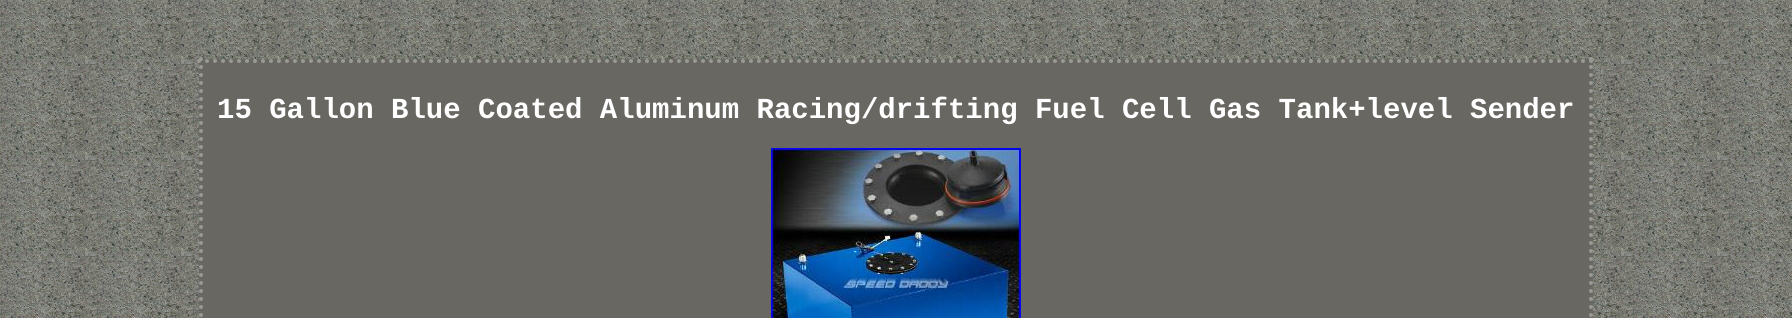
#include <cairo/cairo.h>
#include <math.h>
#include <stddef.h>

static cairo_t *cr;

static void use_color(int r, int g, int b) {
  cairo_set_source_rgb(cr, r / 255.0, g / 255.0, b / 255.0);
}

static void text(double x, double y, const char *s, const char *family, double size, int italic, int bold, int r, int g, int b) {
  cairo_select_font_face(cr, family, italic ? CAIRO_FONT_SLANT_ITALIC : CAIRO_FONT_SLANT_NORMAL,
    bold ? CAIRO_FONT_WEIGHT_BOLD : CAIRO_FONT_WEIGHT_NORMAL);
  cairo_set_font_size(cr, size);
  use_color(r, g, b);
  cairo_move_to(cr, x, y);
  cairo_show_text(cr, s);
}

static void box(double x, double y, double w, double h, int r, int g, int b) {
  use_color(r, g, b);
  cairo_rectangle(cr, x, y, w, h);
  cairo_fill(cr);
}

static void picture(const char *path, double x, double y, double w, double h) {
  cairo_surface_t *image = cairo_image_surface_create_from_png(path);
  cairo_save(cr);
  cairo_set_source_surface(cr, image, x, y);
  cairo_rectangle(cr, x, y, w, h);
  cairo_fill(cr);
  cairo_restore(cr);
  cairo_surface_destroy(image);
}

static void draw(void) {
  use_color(255, 255, 255);
  cairo_paint(cr);
  picture("img_01.png", 0, 0, 1792, 318);
  box(199, 59, 1394, 259, 104, 103, 98);
  cairo_new_path(cr);
  cairo_move_to(cr, 199, 61);
  cairo_line_to(cr, 1593, 61);
  use_color(153, 154, 148);
  cairo_set_line_width(cr, 4);
  cairo_set_line_cap(cr, CAIRO_LINE_CAP_ROUND);
  cairo_set_dash(cr, (double[]){0, 8}, 2, 0);
  cairo_stroke(cr);
  cairo_new_path(cr);
  cairo_move_to(cr, 1591, 59);
  cairo_line_to(cr, 1591, 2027);
  cairo_stroke(cr);
  cairo_new_path(cr);
  cairo_move_to(cr, 201, 59);
  cairo_line_to(cr, 201, 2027);
  cairo_stroke(cr);
  picture("img_02.png", 771, 148, 250, 170);
  text(217, 118, "15 Gallon Blue Coated Aluminum Racing/drifting Fuel Cell Gas Tank+level Sender", "Liberation Mono", 29, 0, 1, 255, 255, 255);
}

int main(void) {
  cairo_surface_t *surface = cairo_image_surface_create(CAIRO_FORMAT_RGB24, 1792, 318);
  cr = cairo_create(surface);
  cairo_font_options_t *options = cairo_font_options_create();
  cairo_font_options_set_hint_metrics(options, CAIRO_HINT_METRICS_OFF);
  cairo_font_options_set_hint_style(options, CAIRO_HINT_STYLE_NONE);
  cairo_set_font_options(cr, options);
  cairo_set_miter_limit(cr, 4);
  draw();
  cairo_surface_write_to_png(surface, "out.png");
  cairo_font_options_destroy(options);
  cairo_destroy(cr);
  cairo_surface_destroy(surface);
  return 0;
}
